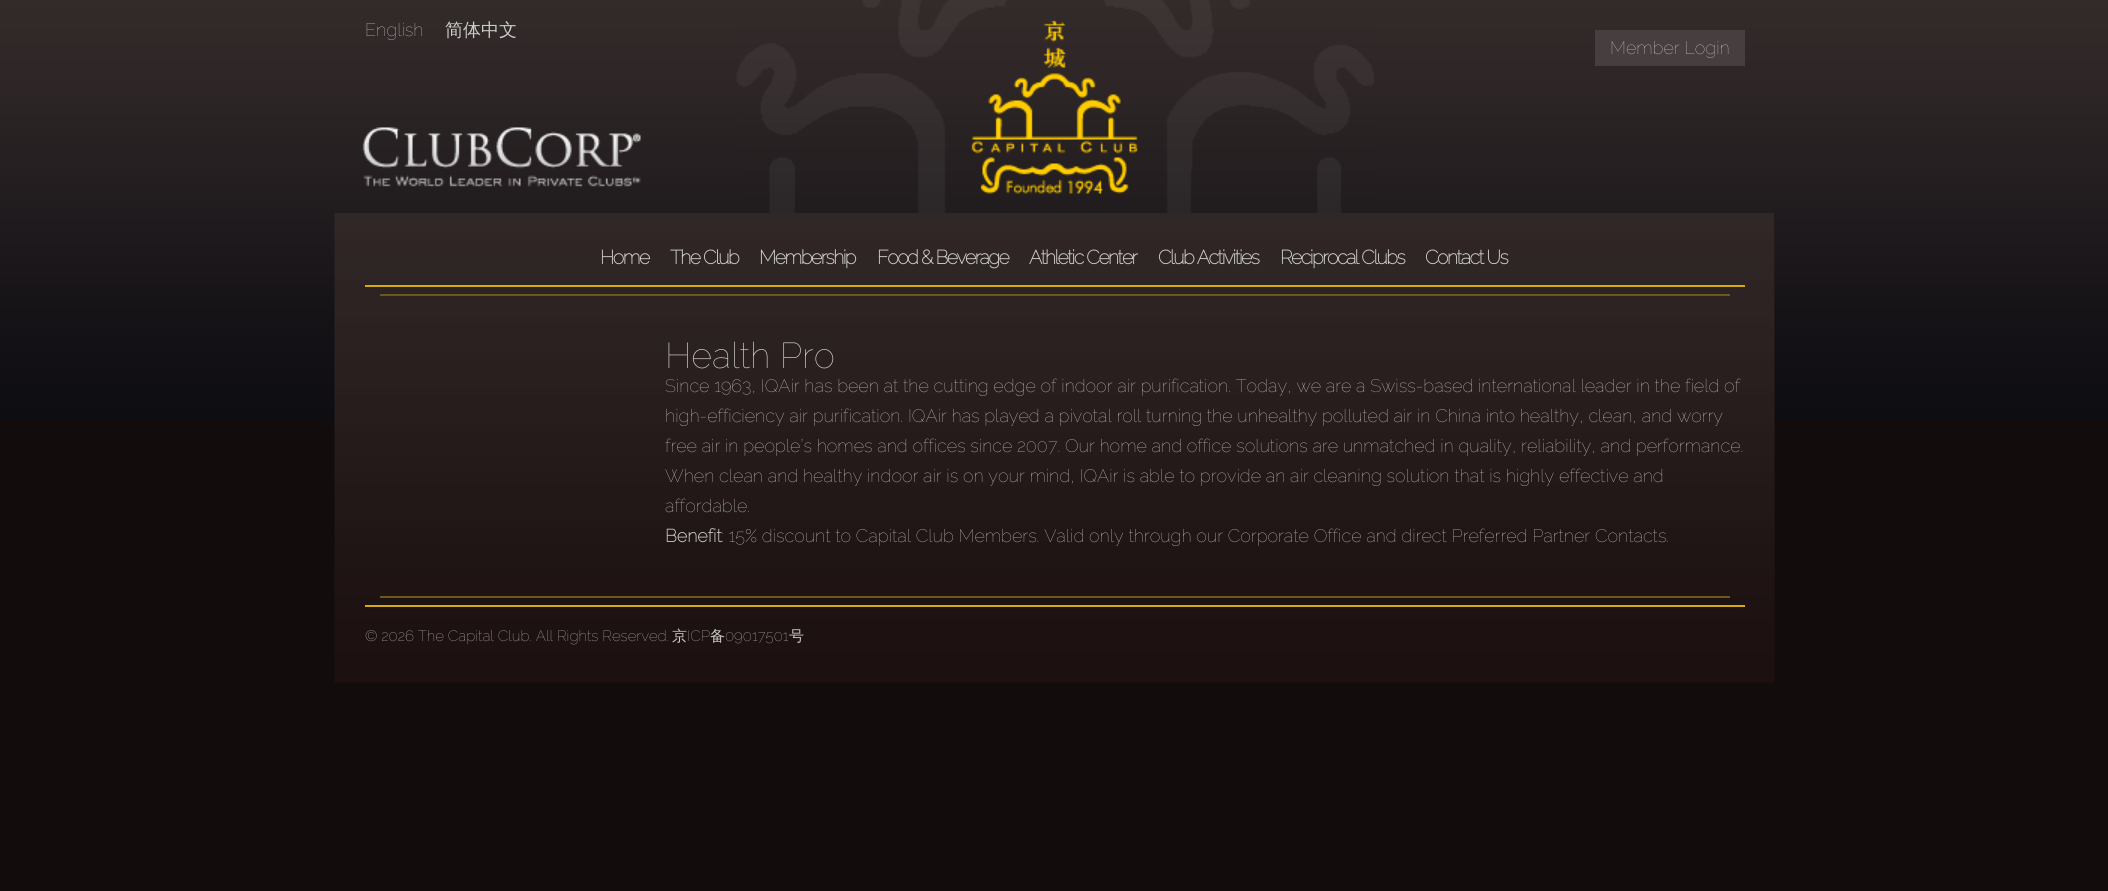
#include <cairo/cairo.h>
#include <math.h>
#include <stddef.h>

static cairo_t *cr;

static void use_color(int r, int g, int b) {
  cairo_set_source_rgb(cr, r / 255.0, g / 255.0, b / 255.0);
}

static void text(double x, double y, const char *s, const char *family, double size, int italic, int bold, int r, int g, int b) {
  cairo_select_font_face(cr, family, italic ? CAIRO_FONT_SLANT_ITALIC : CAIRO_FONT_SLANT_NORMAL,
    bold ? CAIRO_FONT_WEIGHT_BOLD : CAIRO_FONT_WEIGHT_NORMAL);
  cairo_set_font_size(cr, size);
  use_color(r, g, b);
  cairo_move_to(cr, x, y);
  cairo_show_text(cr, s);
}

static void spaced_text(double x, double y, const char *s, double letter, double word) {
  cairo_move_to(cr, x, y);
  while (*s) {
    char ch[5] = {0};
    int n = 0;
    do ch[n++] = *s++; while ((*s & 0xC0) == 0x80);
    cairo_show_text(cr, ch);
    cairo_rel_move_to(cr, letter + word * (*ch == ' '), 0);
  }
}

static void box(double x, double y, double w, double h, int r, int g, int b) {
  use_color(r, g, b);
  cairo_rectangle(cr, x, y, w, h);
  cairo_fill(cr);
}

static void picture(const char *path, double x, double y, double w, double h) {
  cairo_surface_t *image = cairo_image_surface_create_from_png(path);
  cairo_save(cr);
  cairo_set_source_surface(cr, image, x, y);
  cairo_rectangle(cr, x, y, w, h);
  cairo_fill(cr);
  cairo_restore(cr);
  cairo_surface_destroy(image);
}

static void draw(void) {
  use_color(18, 12, 12);
  cairo_paint(cr);
  picture("img_01.png", 0, 0, 2108, 420);
  picture("img_02.png", 736, 0, 638, 213);
  box(1595, 30, 150, 36, 70, 62, 63);
  picture("img_03.png", 362, 127, 279, 60);
  box(335, 213, 1440, 470, 26, 13, 13);
  picture("img_04.png", 334, 213, 1441, 469);
  box(365, 285, 1380, 2, 212, 172, 17);
  box(380, 294, 1350, 2, 109, 87, 28);
  box(380, 596, 1350, 2, 109, 87, 28);
  box(365, 605, 1380, 2, 212, 172, 17);
  text(365, 36, "English", "Raleway Thin", 18, 0, 0, 204, 204, 204);
  text(445, 36, "简体中文", "WenQuanYi Zen Hei Medium", 18, 0, 0, 204, 204, 204);
  text(1610, 54, "Member Login", "Raleway Thin", 18, 0, 0, 204, 204, 204);
  cairo_select_font_face(cr, "Raleway", CAIRO_FONT_SLANT_NORMAL, CAIRO_FONT_WEIGHT_BOLD);
  cairo_set_font_size(cr, 19.5);
  spaced_text(600, 264, "Home", -1.5, 0);
  spaced_text(670, 264, "The Club", -1.5, 0);
  spaced_text(759, 264, "Membership", -1.5, 0);
  spaced_text(877, 264, "Food & Beverage", -1.5, 0);
  spaced_text(1029, 264, "Athletic Center", -1.5, 0);
  spaced_text(1158, 264, "Club Activities", -1.5, 0);
  spaced_text(1280, 264, "Reciprocal Clubs", -1.5, 0);
  spaced_text(1425, 264, "Contact Us", -1.5, 0);
  text(665, 368, "Health Pro", "Raleway Thin", 36, 0, 0, 204, 204, 204);
  text(665, 392, "Since 1963, IQAir has been at the cutting edge of indoor air purification. Today, we are a Swiss-based international leader in the field of", "Raleway Thin", 18, 0, 0, 204, 204, 204);
  text(665, 422, "high-efficiency air purification. IQAir has played a pivotal roll turning the unhealthy polluted air in China into healthy, clean, and worry", "Raleway Thin", 18, 0, 0, 204, 204, 204);
  text(665, 452, "free air in people’s homes and offices since 2007. Our home and office solutions are unmatched in quality, reliability, and performance.", "Raleway Thin", 18, 0, 0, 204, 204, 204);
  text(665, 482, "When clean and healthy indoor air is on your mind, IQAir is able to provide an air cleaning solution that is highly effective and", "Raleway Thin", 18, 0, 0, 204, 204, 204);
  text(665, 512, "affordable.", "Raleway Thin", 18, 0, 0, 204, 204, 204);
  text(665, 542, "Benefit", "Raleway", 18, 0, 1, 204, 204, 204);
  text(721, 542, ": 15% discount to Capital Club Members. Valid only through our Corporate Office and direct Preferred Partner Contacts.", "Raleway Thin", 18, 0, 0, 204, 204, 204);
  text(365, 641, "© 2026 The Capital Club. All Rights Reserved.", "Raleway Thin", 15, 0, 0, 204, 204, 204);
  text(672, 641, "京", "WenQuanYi Zen Hei Medium", 15, 0, 0, 204, 204, 204);
  text(687, 641, "ICP", "Raleway Thin", 15, 0, 0, 204, 204, 204);
  text(710, 641, "备", "WenQuanYi Zen Hei Medium", 15, 0, 0, 204, 204, 204);
  text(725, 641, "09017501", "Raleway Thin", 15, 0, 0, 204, 204, 204);
  text(789, 641, "号", "WenQuanYi Zen Hei Medium", 15, 0, 0, 204, 204, 204);
}

int main(void) {
  cairo_surface_t *surface = cairo_image_surface_create(CAIRO_FORMAT_RGB24, 2108, 891);
  cr = cairo_create(surface);
  cairo_font_options_t *options = cairo_font_options_create();
  cairo_font_options_set_hint_metrics(options, CAIRO_HINT_METRICS_OFF);
  cairo_font_options_set_hint_style(options, CAIRO_HINT_STYLE_NONE);
  cairo_set_font_options(cr, options);
  cairo_set_miter_limit(cr, 4);
  draw();
  cairo_surface_write_to_png(surface, "out.png");
  cairo_font_options_destroy(options);
  cairo_destroy(cr);
  cairo_surface_destroy(surface);
  return 0;
}
